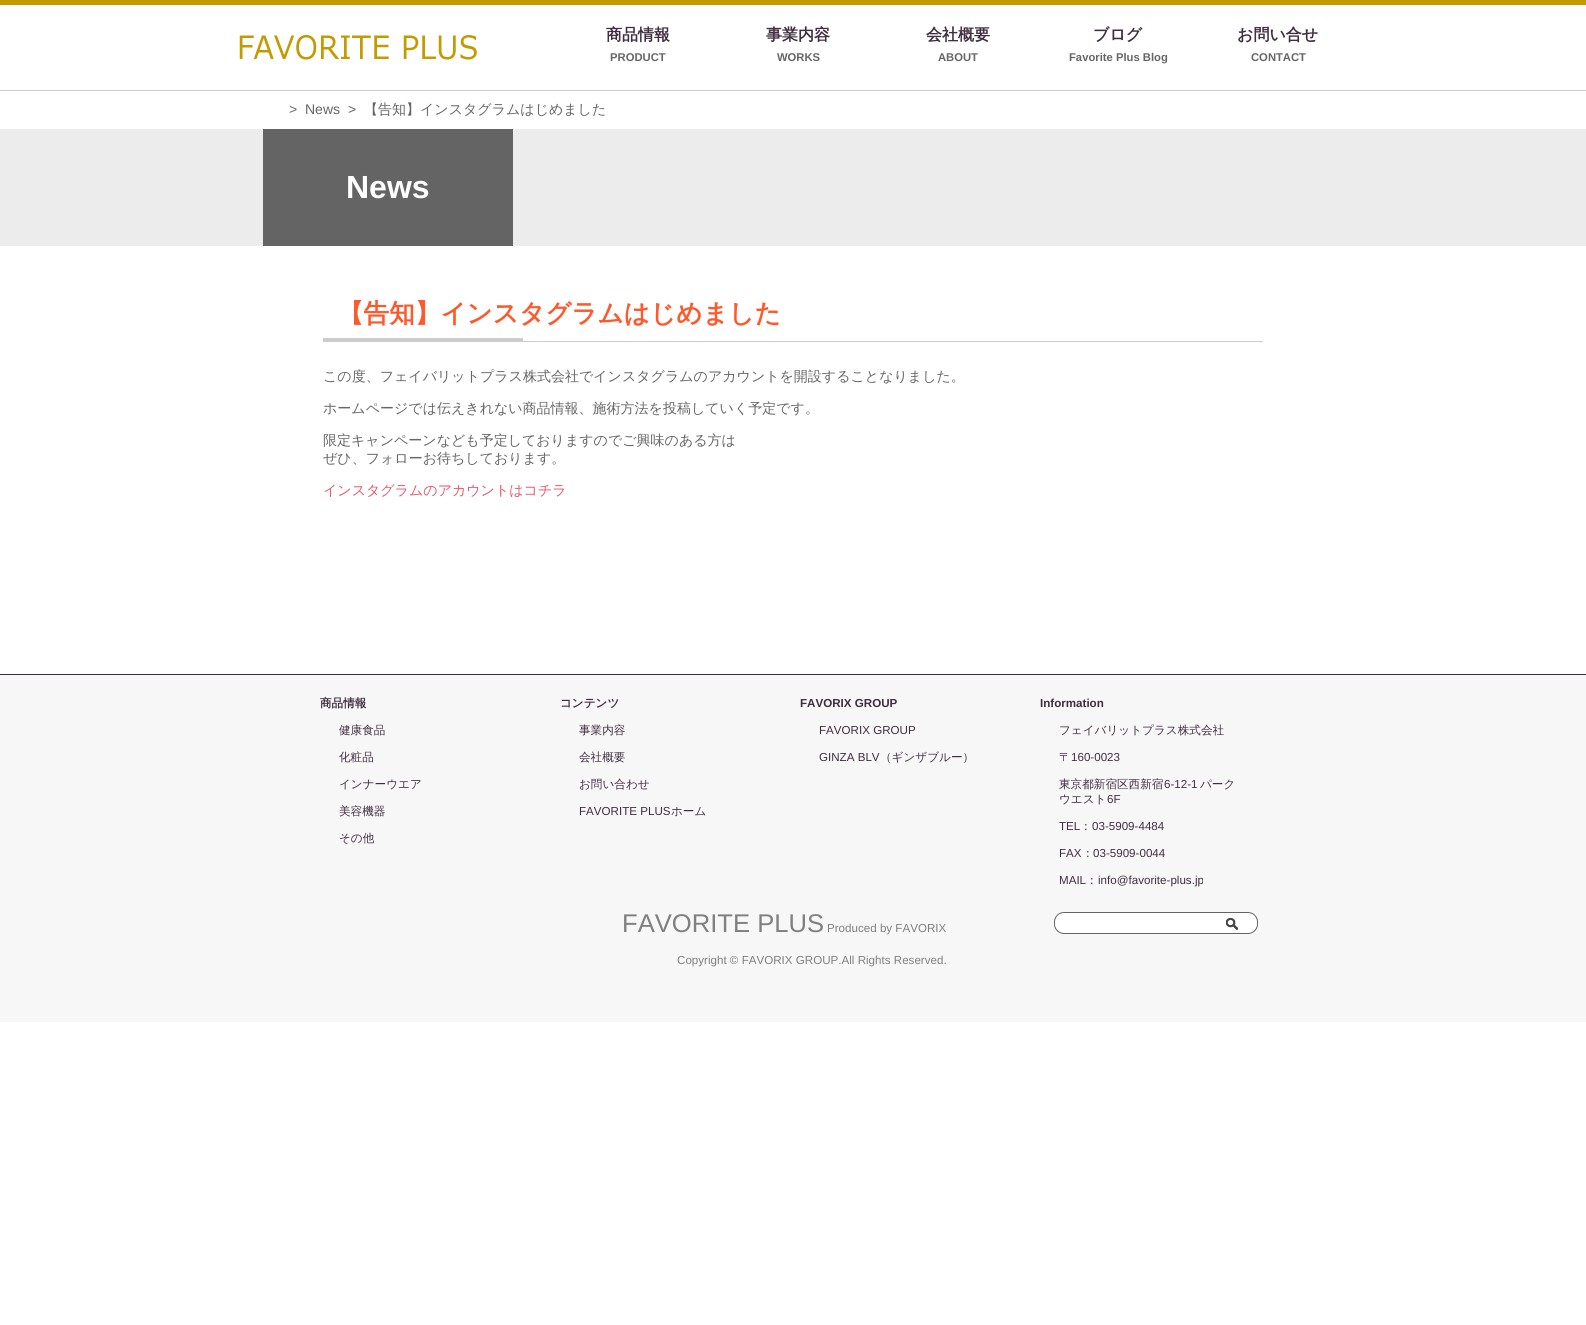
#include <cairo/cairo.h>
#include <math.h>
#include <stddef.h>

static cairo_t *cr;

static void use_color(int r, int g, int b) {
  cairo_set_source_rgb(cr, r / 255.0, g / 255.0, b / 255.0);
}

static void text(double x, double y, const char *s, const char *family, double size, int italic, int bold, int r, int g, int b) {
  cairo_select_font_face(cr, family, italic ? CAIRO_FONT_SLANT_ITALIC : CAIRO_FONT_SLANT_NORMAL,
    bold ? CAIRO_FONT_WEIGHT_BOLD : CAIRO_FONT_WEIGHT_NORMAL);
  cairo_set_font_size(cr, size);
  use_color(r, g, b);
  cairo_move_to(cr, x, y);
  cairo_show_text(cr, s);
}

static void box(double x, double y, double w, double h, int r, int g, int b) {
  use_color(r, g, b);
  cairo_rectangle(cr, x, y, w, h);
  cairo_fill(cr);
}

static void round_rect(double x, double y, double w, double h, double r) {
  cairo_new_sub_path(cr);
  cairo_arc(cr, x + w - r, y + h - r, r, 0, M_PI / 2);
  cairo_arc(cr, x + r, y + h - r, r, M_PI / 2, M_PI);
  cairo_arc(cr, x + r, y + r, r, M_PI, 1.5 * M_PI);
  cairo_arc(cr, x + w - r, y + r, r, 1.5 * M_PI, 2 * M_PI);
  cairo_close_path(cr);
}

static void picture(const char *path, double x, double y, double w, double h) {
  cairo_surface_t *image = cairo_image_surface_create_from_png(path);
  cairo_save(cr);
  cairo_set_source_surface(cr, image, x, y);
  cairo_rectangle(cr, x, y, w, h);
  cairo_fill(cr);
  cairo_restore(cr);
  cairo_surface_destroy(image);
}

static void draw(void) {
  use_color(255, 255, 255);
  cairo_paint(cr);
  box(0, 0, 1586, 5, 195, 155, 0);
  box(0, 90, 1586, 1, 204, 204, 204);
  picture("img_01.png", 239, 35, 238, 25);
  box(0, 129, 1586, 117, 236, 236, 236);
  box(263, 129, 250, 117, 100, 100, 100);
  box(323, 341, 940, 1, 204, 204, 204);
  box(323, 338, 200, 3, 204, 204, 204);
  box(0, 675, 1586, 347, 247, 247, 247);
  box(0, 674, 1586, 1, 63, 46, 64);
  use_color(255, 255, 255);
  round_rect(1054.5, 912.5, 203, 21, 9.5);
  cairo_fill_preserve(cr);
  use_color(100, 100, 100);
  cairo_set_line_width(cr, 1);
  cairo_stroke(cr);
  picture("img_02.png", 1226, 918, 12, 12);
  text(606, 40, "商品情報", "WenQuanYi Zen Hei", 16, 0, 1, 63, 46, 64);
  text(610, 61, "PRODUCT", "Liberation Sans", 11.25, 0, 1, 102, 102, 102);
  text(766, 40, "事業内容", "WenQuanYi Zen Hei", 16, 0, 1, 63, 46, 64);
  text(777, 61, "WORKS", "Liberation Sans", 11.25, 0, 1, 102, 102, 102);
  text(926, 40, "会社概要", "WenQuanYi Zen Hei", 16, 0, 1, 63, 46, 64);
  text(938, 61, "ABOUT", "Liberation Sans", 11.25, 0, 1, 102, 102, 102);
  text(1093, 40, "ブログ", "WenQuanYi Zen Hei", 16, 0, 1, 63, 46, 64);
  text(1069, 61, "Favorite Plus Blog", "Liberation Sans", 11.25, 0, 1, 102, 102, 102);
  text(1237, 40, "お問い合せ", "WenQuanYi Zen Hei", 16, 0, 1, 63, 46, 64);
  text(1251, 61, "CONTACT", "Liberation Sans", 11.25, 0, 1, 102, 102, 102);
  text(289, 114, ">", "Liberation Sans", 14, 0, 0, 102, 102, 102);
  text(305, 114, "News", "Liberation Sans", 14, 0, 0, 102, 102, 102);
  text(348, 114, ">", "Liberation Sans", 14, 0, 0, 102, 102, 102);
  text(364, 114, "【告知】インスタグラムはじめました", "WenQuanYi Zen Hei Medium", 14, 0, 0, 102, 102, 102);
  text(346, 198, "News", "Liberation Sans", 32, 0, 1, 255, 255, 255);
  text(338, 322, "【告知】インスタグラムはじめました", "WenQuanYi Zen Hei", 25.6, 0, 1, 255, 88, 43);
  text(323, 381, "この度、フェイバリットプラス株式会社でインスタグラムのアカウントを開設することなりました。", "WenQuanYi Zen Hei Medium", 14, 0, 0, 102, 102, 102);
  text(323, 413, "ホームページでは伝えきれない商品情報、施術方法を投稿していく予定です。", "WenQuanYi Zen Hei Medium", 14, 0, 0, 102, 102, 102);
  text(323, 445, "限定キャンペーンなども予定しておりますのでご興味のある方は", "WenQuanYi Zen Hei Medium", 14, 0, 0, 102, 102, 102);
  text(323, 463, "ぜひ、フォローお待ちしております。", "WenQuanYi Zen Hei Medium", 14, 0, 0, 102, 102, 102);
  text(323, 495, "インスタグラムのアカウントはコチラ", "WenQuanYi Zen Hei Medium", 14, 0, 0, 233, 86, 109);
  text(320, 707, "商品情報", "WenQuanYi Zen Hei", 11.6, 0, 1, 63, 46, 64);
  text(339, 734, "健康食品", "WenQuanYi Zen Hei Medium", 11.6, 0, 0, 63, 46, 64);
  text(339, 761, "化粧品", "WenQuanYi Zen Hei Medium", 11.6, 0, 0, 63, 46, 64);
  text(339, 788, "インナーウエア", "WenQuanYi Zen Hei Medium", 11.6, 0, 0, 63, 46, 64);
  text(339, 815, "美容機器", "WenQuanYi Zen Hei Medium", 11.6, 0, 0, 63, 46, 64);
  text(339, 842, "その他", "WenQuanYi Zen Hei Medium", 11.6, 0, 0, 63, 46, 64);
  text(560, 707, "コンテンツ", "WenQuanYi Zen Hei", 11.6, 0, 1, 63, 46, 64);
  text(579, 734, "事業内容", "WenQuanYi Zen Hei Medium", 11.6, 0, 0, 63, 46, 64);
  text(579, 761, "会社概要", "WenQuanYi Zen Hei Medium", 11.6, 0, 0, 63, 46, 64);
  text(579, 788, "お問い合わせ", "WenQuanYi Zen Hei Medium", 11.6, 0, 0, 63, 46, 64);
  text(579, 815, "FAVORITE PLUS", "Liberation Sans", 11.6, 0, 0, 63, 46, 64);
  text(671, 815, "ホーム", "WenQuanYi Zen Hei Medium", 11.6, 0, 0, 63, 46, 64);
  text(800, 707, "FAVORIX GROUP", "Liberation Sans", 11.6, 0, 1, 63, 46, 64);
  text(819, 734, "FAVORIX GROUP", "Liberation Sans", 11.6, 0, 0, 63, 46, 64);
  text(819, 761, "GINZA BLV", "Liberation Sans", 11.6, 0, 0, 63, 46, 64);
  text(880, 761, "（ギンザブルー）", "WenQuanYi Zen Hei Medium", 11.6, 0, 0, 63, 46, 64);
  text(1040, 707, "Information", "Liberation Sans", 11.6, 0, 1, 63, 46, 64);
  text(1059, 734, "フェイバリットプラス株式会社", "WenQuanYi Zen Hei Medium", 11.6, 0, 0, 63, 46, 64);
  text(1059, 761, "〒", "WenQuanYi Zen Hei Medium", 11.6, 0, 0, 63, 46, 64);
  text(1071, 761, "160-0023", "Liberation Sans", 11.6, 0, 0, 63, 46, 64);
  text(1059, 788, "東京都新宿区西新宿", "WenQuanYi Zen Hei Medium", 11.6, 0, 0, 63, 46, 64);
  text(1164, 788, "6-12-1", "Liberation Sans", 11.6, 0, 0, 63, 46, 64);
  text(1200, 788, "パーク", "WenQuanYi Zen Hei Medium", 11.6, 0, 0, 63, 46, 64);
  text(1059, 803, "ウエスト", "WenQuanYi Zen Hei Medium", 11.6, 0, 0, 63, 46, 64);
  text(1107, 803, "6F", "Liberation Sans", 11.6, 0, 0, 63, 46, 64);
  text(1059, 830, "TEL", "Liberation Sans", 11.6, 0, 0, 63, 46, 64);
  text(1080, 830, "：", "WenQuanYi Zen Hei Medium", 11.6, 0, 0, 63, 46, 64);
  text(1092, 830, "03-5909-4484", "Liberation Sans", 11.6, 0, 0, 63, 46, 64);
  text(1059, 857, "FAX", "Liberation Sans", 11.6, 0, 0, 63, 46, 64);
  text(1082, 857, "：", "WenQuanYi Zen Hei Medium", 11.6, 0, 0, 63, 46, 64);
  text(1093, 857, "03-5909-0044", "Liberation Sans", 11.6, 0, 0, 63, 46, 64);
  text(1059, 884, "MAIL", "Liberation Sans", 11.6, 0, 0, 63, 46, 64);
  text(1086, 884, "：", "WenQuanYi Zen Hei Medium", 11.6, 0, 0, 63, 46, 64);
  text(1098, 884, "info@favorite-plus.jp", "Liberation Sans", 11.6, 0, 0, 63, 46, 64);
  text(622, 932, "FAVORITE PLUS", "Liberation Sans", 25.6, 0, 0, 128, 128, 128);
  text(827, 932, "Produced by FAVORIX", "Liberation Sans", 11.6, 0, 0, 128, 128, 128);
  text(677, 964, "Copyright © FAVORIX GROUP.All Rights Reserved.", "Liberation Sans", 11.6, 0, 0, 128, 128, 128);
}

int main(void) {
  cairo_surface_t *surface = cairo_image_surface_create(CAIRO_FORMAT_RGB24, 1586, 1325);
  cr = cairo_create(surface);
  cairo_font_options_t *options = cairo_font_options_create();
  cairo_font_options_set_hint_metrics(options, CAIRO_HINT_METRICS_OFF);
  cairo_font_options_set_hint_style(options, CAIRO_HINT_STYLE_NONE);
  cairo_set_font_options(cr, options);
  cairo_set_miter_limit(cr, 4);
  draw();
  cairo_surface_write_to_png(surface, "out.png");
  cairo_font_options_destroy(options);
  cairo_destroy(cr);
  cairo_surface_destroy(surface);
  return 0;
}
